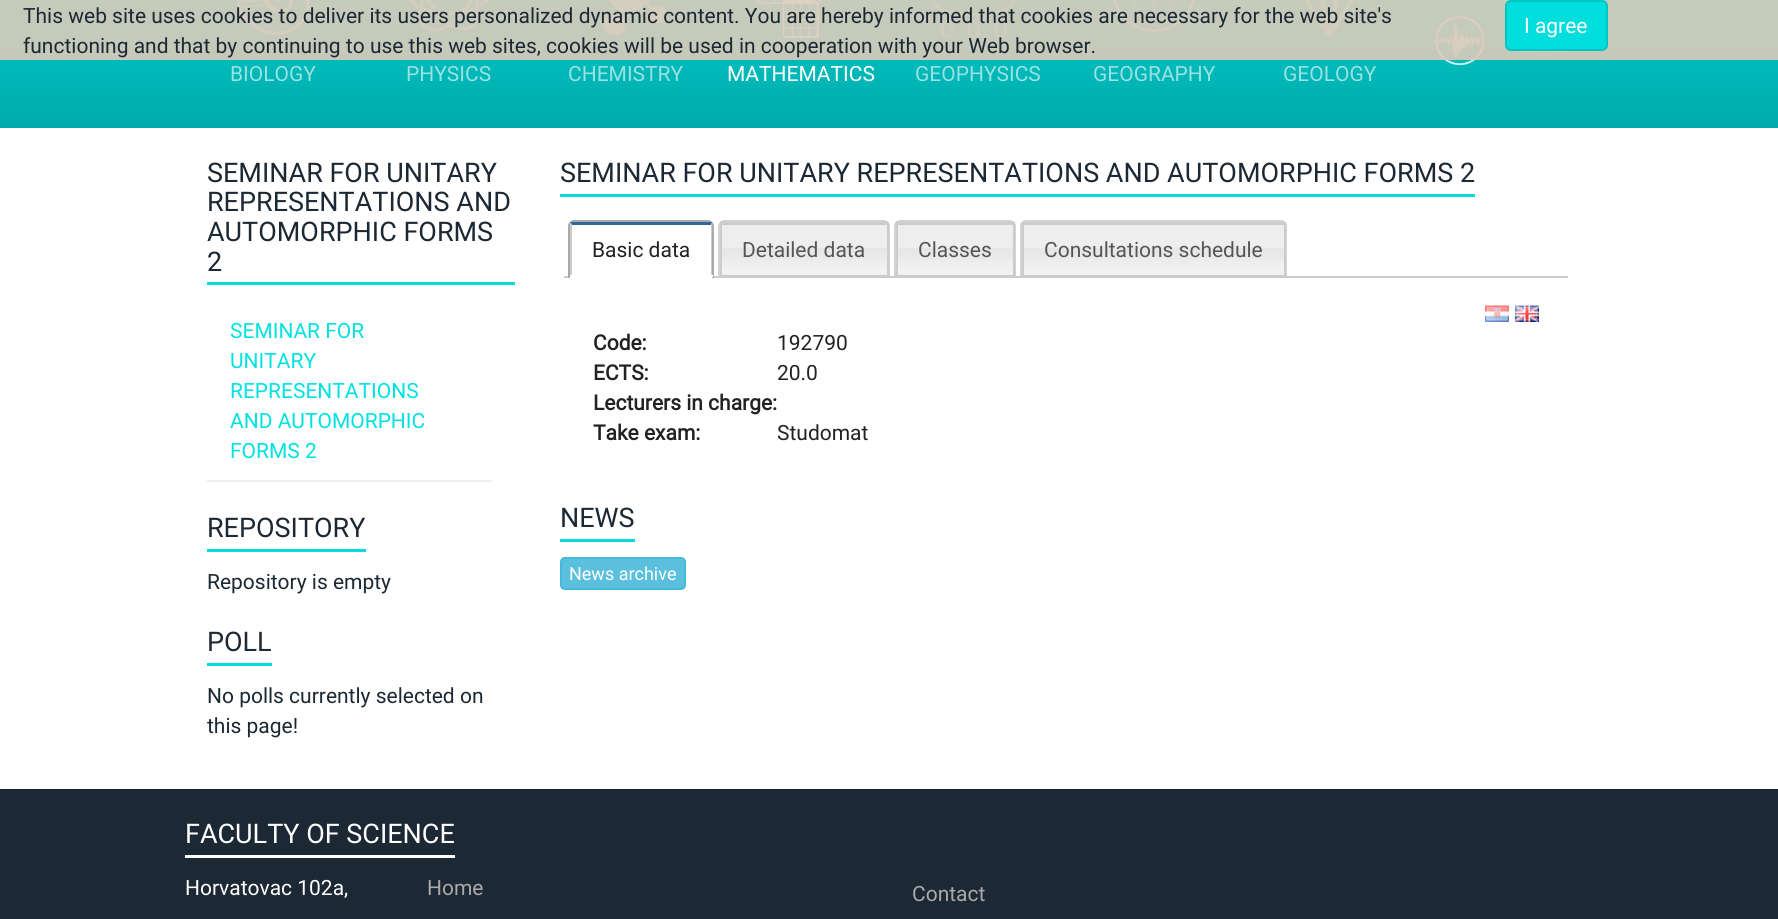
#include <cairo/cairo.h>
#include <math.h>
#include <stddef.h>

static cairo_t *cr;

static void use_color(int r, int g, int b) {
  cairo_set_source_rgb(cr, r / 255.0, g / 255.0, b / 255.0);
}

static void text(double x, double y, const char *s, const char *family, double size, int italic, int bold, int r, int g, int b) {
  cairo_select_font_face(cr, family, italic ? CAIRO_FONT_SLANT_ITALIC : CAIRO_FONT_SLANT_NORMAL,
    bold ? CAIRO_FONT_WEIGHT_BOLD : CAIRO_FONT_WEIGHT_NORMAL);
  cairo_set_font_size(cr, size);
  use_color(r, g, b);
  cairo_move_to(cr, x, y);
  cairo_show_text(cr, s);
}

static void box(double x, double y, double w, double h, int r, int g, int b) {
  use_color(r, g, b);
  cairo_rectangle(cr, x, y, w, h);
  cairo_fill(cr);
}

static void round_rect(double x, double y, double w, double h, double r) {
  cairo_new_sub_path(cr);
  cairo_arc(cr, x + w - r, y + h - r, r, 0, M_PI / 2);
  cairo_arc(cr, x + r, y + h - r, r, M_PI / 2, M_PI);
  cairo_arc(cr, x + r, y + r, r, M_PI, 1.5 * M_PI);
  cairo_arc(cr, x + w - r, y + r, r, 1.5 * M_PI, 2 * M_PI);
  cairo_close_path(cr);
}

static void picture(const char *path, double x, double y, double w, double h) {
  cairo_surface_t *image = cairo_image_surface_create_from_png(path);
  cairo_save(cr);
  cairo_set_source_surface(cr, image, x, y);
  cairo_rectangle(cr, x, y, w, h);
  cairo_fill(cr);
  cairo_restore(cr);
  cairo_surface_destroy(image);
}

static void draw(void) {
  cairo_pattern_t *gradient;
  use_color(255, 255, 255);
  cairo_paint(cr);
  gradient = cairo_pattern_create_linear(890, 128, 890, -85);
  cairo_pattern_add_color_stop_rgba(gradient, 0, 0, 0.667, 0.667, 1);
  cairo_pattern_add_color_stop_rgba(gradient, 1, 0, 0.867, 0.867, 1);
  cairo_set_source(cr, gradient);
  cairo_pattern_destroy(gradient);
  cairo_rectangle(cr, 0, 0, 1778, 128);
  cairo_fill(cr);
  picture("img_01.png", 236, 0, 74, 36);
  picture("img_02.png", 408, 0, 81, 32);
  picture("img_03.png", 603, 0, 64, 36);
  picture("img_04.png", 757, 0, 65, 38);
  picture("img_05.png", 1435, 16, 131, 49);
  picture("img_06.png", 932, 0, 83, 38);
  picture("img_07.png", 1112, 0, 83, 32);
  picture("img_08.png", 1304, 0, 51, 36);
  cairo_set_source_rgba(cr, 0.863, 0.796, 0.733, 0.9);
  cairo_rectangle(cr, 0, 0, 1778, 60);
  cairo_fill(cr);
  use_color(0, 221, 221);
  round_rect(1506, 1, 101, 49, 5);
  cairo_fill_preserve(cr);
  use_color(0, 195, 196);
  cairo_stroke(cr);
  box(207, 282, 308, 3, 0, 221, 221);
  box(207, 480, 285, 2, 238, 238, 238);
  box(207, 549, 159, 3, 0, 221, 221);
  box(207, 663, 65, 3, 0, 221, 221);
  box(560, 194, 915, 3, 0, 221, 221);
  box(564, 276, 1004, 2, 204, 204, 204);
  use_color(255, 255, 255);
  cairo_new_path(cr);
  cairo_move_to(cr, 575, 222);
  cairo_line_to(cr, 708, 222);
  cairo_curve_to(cr, 711, 222, 713, 224, 713, 227);
  cairo_line_to(cr, 713, 278);
  cairo_line_to(cr, 570, 278);
  cairo_line_to(cr, 570, 227);
  cairo_curve_to(cr, 570, 224, 572, 222, 575, 222);
  cairo_close_path(cr);
  cairo_fill(cr);
  use_color(170, 170, 170);
  cairo_set_fill_rule(cr, CAIRO_FILL_RULE_EVEN_ODD);
  cairo_new_path(cr);
  cairo_move_to(cr, 574, 220);
  cairo_line_to(cr, 708, 220);
  cairo_curve_to(cr, 711, 220, 714, 223, 714, 226);
  cairo_line_to(cr, 714, 278);
  cairo_line_to(cr, 568, 278);
  cairo_line_to(cr, 568, 226);
  cairo_curve_to(cr, 568, 223, 571, 220, 574, 220);
  cairo_close_path(cr);
  cairo_move_to(cr, 574, 222);
  cairo_line_to(cr, 708, 222);
  cairo_curve_to(cr, 710, 222, 712, 224, 712, 226);
  cairo_line_to(cr, 712, 278);
  cairo_line_to(cr, 570, 278);
  cairo_line_to(cr, 570, 226);
  cairo_curve_to(cr, 570, 224, 572, 222, 574, 222);
  cairo_close_path(cr);
  cairo_fill(cr);
  use_color(51, 102, 153);
  cairo_set_fill_rule(cr, CAIRO_FILL_RULE_WINDING);
  cairo_new_path(cr);
  cairo_move_to(cr, 570, 222);
  cairo_line_to(cr, 712, 222);
  cairo_line_to(cr, 711, 225);
  cairo_line_to(cr, 572, 225);
  cairo_close_path(cr);
  cairo_fill(cr);
  use_color(204, 204, 204);
  cairo_new_path(cr);
  cairo_move_to(cr, 712, 222);
  cairo_line_to(cr, 712, 276);
  cairo_line_to(cr, 711, 274);
  cairo_line_to(cr, 711, 225);
  cairo_close_path(cr);
  cairo_fill(cr);
  box(711, 275, 2, 2, 255, 255, 255);
  use_color(204, 204, 204);
  cairo_new_path(cr);
  cairo_move_to(cr, 570, 276);
  cairo_line_to(cr, 570, 222);
  cairo_line_to(cr, 572, 225);
  cairo_line_to(cr, 572, 274);
  cairo_close_path(cr);
  cairo_fill(cr);
  picture("img_09.png", 718, 220, 172, 55);
  use_color(211, 211, 211);
  cairo_set_fill_rule(cr, CAIRO_FILL_RULE_EVEN_ODD);
  cairo_new_path(cr);
  cairo_move_to(cr, 724, 220);
  cairo_line_to(cr, 884, 220);
  cairo_curve_to(cr, 887, 220, 890, 223, 890, 226);
  cairo_line_to(cr, 890, 276);
  cairo_line_to(cr, 718, 276);
  cairo_line_to(cr, 718, 226);
  cairo_curve_to(cr, 718, 223, 721, 220, 724, 220);
  cairo_close_path(cr);
  cairo_move_to(cr, 724, 222);
  cairo_line_to(cr, 884, 222);
  cairo_curve_to(cr, 886, 222, 888, 224, 888, 226);
  cairo_line_to(cr, 888, 276);
  cairo_line_to(cr, 720, 276);
  cairo_line_to(cr, 720, 226);
  cairo_curve_to(cr, 720, 224, 722, 222, 724, 222);
  cairo_close_path(cr);
  cairo_fill(cr);
  box(720, 222, 168, 3, 204, 204, 204);
  box(887, 222, 2, 54, 204, 204, 204);
  box(720, 275, 168, 1, 204, 204, 204);
  box(720, 222, 2, 54, 204, 204, 204);
  picture("img_10.png", 894, 220, 122, 55);
  use_color(211, 211, 211);
  cairo_new_path(cr);
  cairo_move_to(cr, 900, 220);
  cairo_line_to(cr, 1010, 220);
  cairo_curve_to(cr, 1013, 220, 1016, 223, 1016, 226);
  cairo_line_to(cr, 1016, 276);
  cairo_line_to(cr, 894, 276);
  cairo_line_to(cr, 894, 226);
  cairo_curve_to(cr, 894, 223, 897, 220, 900, 220);
  cairo_close_path(cr);
  cairo_move_to(cr, 900, 222);
  cairo_line_to(cr, 1010, 222);
  cairo_curve_to(cr, 1012, 222, 1014, 224, 1014, 226);
  cairo_line_to(cr, 1014, 276);
  cairo_line_to(cr, 896, 276);
  cairo_line_to(cr, 896, 226);
  cairo_curve_to(cr, 896, 224, 898, 222, 900, 222);
  cairo_close_path(cr);
  cairo_fill(cr);
  box(896, 222, 118, 3, 204, 204, 204);
  box(1013, 222, 2, 54, 204, 204, 204);
  box(896, 275, 118, 1, 204, 204, 204);
  box(896, 222, 2, 54, 204, 204, 204);
  picture("img_11.png", 1020, 220, 267, 55);
  use_color(211, 211, 211);
  cairo_new_path(cr);
  cairo_move_to(cr, 1026, 220);
  cairo_line_to(cr, 1281, 220);
  cairo_curve_to(cr, 1284, 220, 1287, 223, 1287, 226);
  cairo_line_to(cr, 1287, 276);
  cairo_line_to(cr, 1020, 276);
  cairo_line_to(cr, 1020, 226);
  cairo_curve_to(cr, 1020, 223, 1023, 220, 1026, 220);
  cairo_close_path(cr);
  cairo_move_to(cr, 1026, 222);
  cairo_line_to(cr, 1281, 222);
  cairo_curve_to(cr, 1283, 222, 1286, 224, 1286, 226);
  cairo_line_to(cr, 1286, 276);
  cairo_line_to(cr, 1022, 276);
  cairo_line_to(cr, 1022, 226);
  cairo_curve_to(cr, 1022, 224, 1024, 222, 1026, 222);
  cairo_close_path(cr);
  cairo_fill(cr);
  box(1022, 222, 264, 3, 204, 204, 204);
  box(1284, 222, 2, 54, 204, 204, 204);
  box(1022, 275, 264, 1, 204, 204, 204);
  box(1022, 222, 2, 54, 204, 204, 204);
  picture("img_12.png", 1485, 305, 24, 17);
  picture("img_13.png", 1515, 305, 24, 17);
  box(560, 539, 75, 3, 0, 221, 221);
  use_color(91, 192, 222);
  round_rect(561, 558, 124, 31, 4);
  cairo_fill_preserve(cr);
  use_color(70, 184, 218);
  cairo_stroke(cr);
  box(0, 789, 1778, 130, 28, 40, 51);
  box(185, 855, 270, 3, 255, 255, 255);
  text(23, 23, "This web site uses cookies to deliver its users personalized dynamic content. You are hereby informed that cookies are necessary for the web site's", "Roboto", 21, 0, 0, 28, 40, 51);
  text(23, 53, "functioning and that by continuing to use this web sites, cookies will be used in cooperation with your Web browser.", "Roboto", 21, 0, 0, 28, 40, 51);
  text(1524, 33, "I agree", "Roboto", 21, 0, 0, 255, 255, 255);
  text(230, 81, "BIOLOGY", "Roboto", 21, 0, 0, 153, 226, 226);
  text(406, 81, "PHYSICS", "Roboto", 21, 0, 0, 153, 226, 226);
  text(568, 81, "CHEMISTRY", "Roboto", 21, 0, 0, 153, 226, 226);
  text(727, 81, "MATHEMATICS", "Roboto", 21, 0, 0, 255, 255, 255);
  text(915, 81, "GEOPHYSICS", "Roboto", 21, 0, 0, 153, 226, 226);
  text(1093, 81, "GEOGRAPHY", "Roboto", 21, 0, 0, 153, 226, 226);
  text(1283, 81, "GEOLOGY", "Roboto", 21, 0, 0, 153, 226, 226);
  text(207, 182, "SEMINAR FOR UNITARY", "Roboto", 27, 0, 0, 28, 40, 51);
  text(207, 211, "REPRESENTATIONS AND", "Roboto", 27, 0, 0, 28, 40, 51);
  text(207, 241, "AUTOMORPHIC FORMS", "Roboto", 27, 0, 0, 28, 40, 51);
  text(207, 271, "2", "Roboto", 27, 0, 0, 28, 40, 51);
  text(230, 338, "SEMINAR FOR", "Roboto", 21, 0, 0, 0, 225, 225);
  text(230, 368, "UNITARY", "Roboto", 21, 0, 0, 0, 225, 225);
  text(230, 398, "REPRESENTATIONS", "Roboto", 21, 0, 0, 0, 225, 225);
  text(230, 428, "AND AUTOMORPHIC", "Roboto", 21, 0, 0, 0, 225, 225);
  text(230, 458, "FORMS 2", "Roboto", 21, 0, 0, 0, 225, 225);
  text(207, 537, "REPOSITORY", "Roboto", 27, 0, 0, 28, 40, 51);
  text(207, 589, "Repository is empty", "Roboto", 21, 0, 0, 28, 40, 51);
  text(207, 651, "POLL", "Roboto", 27, 0, 0, 28, 40, 51);
  text(207, 703, "No polls currently selected on", "Roboto", 21, 0, 0, 28, 40, 51);
  text(207, 733, "this page!", "Roboto", 21, 0, 0, 28, 40, 51);
  text(560, 182, "SEMINAR FOR UNITARY REPRESENTATIONS AND AUTOMORPHIC FORMS 2", "Roboto", 27, 0, 0, 28, 40, 51);
  text(592, 257, "Basic data", "Roboto", 21, 0, 0, 34, 34, 34);
  text(742, 257, "Detailed data", "Roboto", 21, 0, 0, 85, 85, 85);
  text(918, 257, "Classes", "Roboto", 21, 0, 0, 85, 85, 85);
  text(1044, 257, "Consultations schedule", "Roboto", 21, 0, 0, 85, 85, 85);
  text(593, 350, "Code:", "Roboto", 21, 0, 1, 34, 34, 34);
  text(777, 350, "192790", "Roboto", 21, 0, 0, 34, 34, 34);
  text(593, 380, "ECTS:", "Roboto", 21, 0, 1, 34, 34, 34);
  text(777, 380, "20.0", "Roboto", 21, 0, 0, 34, 34, 34);
  text(593, 410, "Lecturers in charge:", "Roboto", 21, 0, 1, 34, 34, 34);
  text(593, 440, "Take exam:", "Roboto", 21, 0, 1, 34, 34, 34);
  text(777, 440, "Studomat", "Roboto", 21, 0, 0, 34, 34, 34);
  text(560, 527, "NEWS", "Roboto", 27, 0, 0, 28, 40, 51);
  text(569, 580, "News archive", "Roboto", 18, 0, 0, 255, 255, 255);
  text(185, 843, "FACULTY OF SCIENCE", "Roboto", 27, 0, 0, 255, 255, 255);
  text(185, 895, "Horvatovac 102a,", "Roboto", 21, 0, 0, 255, 255, 255);
  text(427, 895, "Home", "Roboto", 21, 0, 0, 170, 170, 170);
  text(912, 901, "Contact", "Roboto", 21, 0, 0, 170, 170, 170);
}

int main(void) {
  cairo_surface_t *surface = cairo_image_surface_create(CAIRO_FORMAT_RGB24, 1778, 919);
  cr = cairo_create(surface);
  cairo_font_options_t *options = cairo_font_options_create();
  cairo_font_options_set_hint_metrics(options, CAIRO_HINT_METRICS_OFF);
  cairo_font_options_set_hint_style(options, CAIRO_HINT_STYLE_NONE);
  cairo_set_font_options(cr, options);
  cairo_set_miter_limit(cr, 4);
  draw();
  cairo_surface_write_to_png(surface, "out.png");
  cairo_font_options_destroy(options);
  cairo_destroy(cr);
  cairo_surface_destroy(surface);
  return 0;
}
